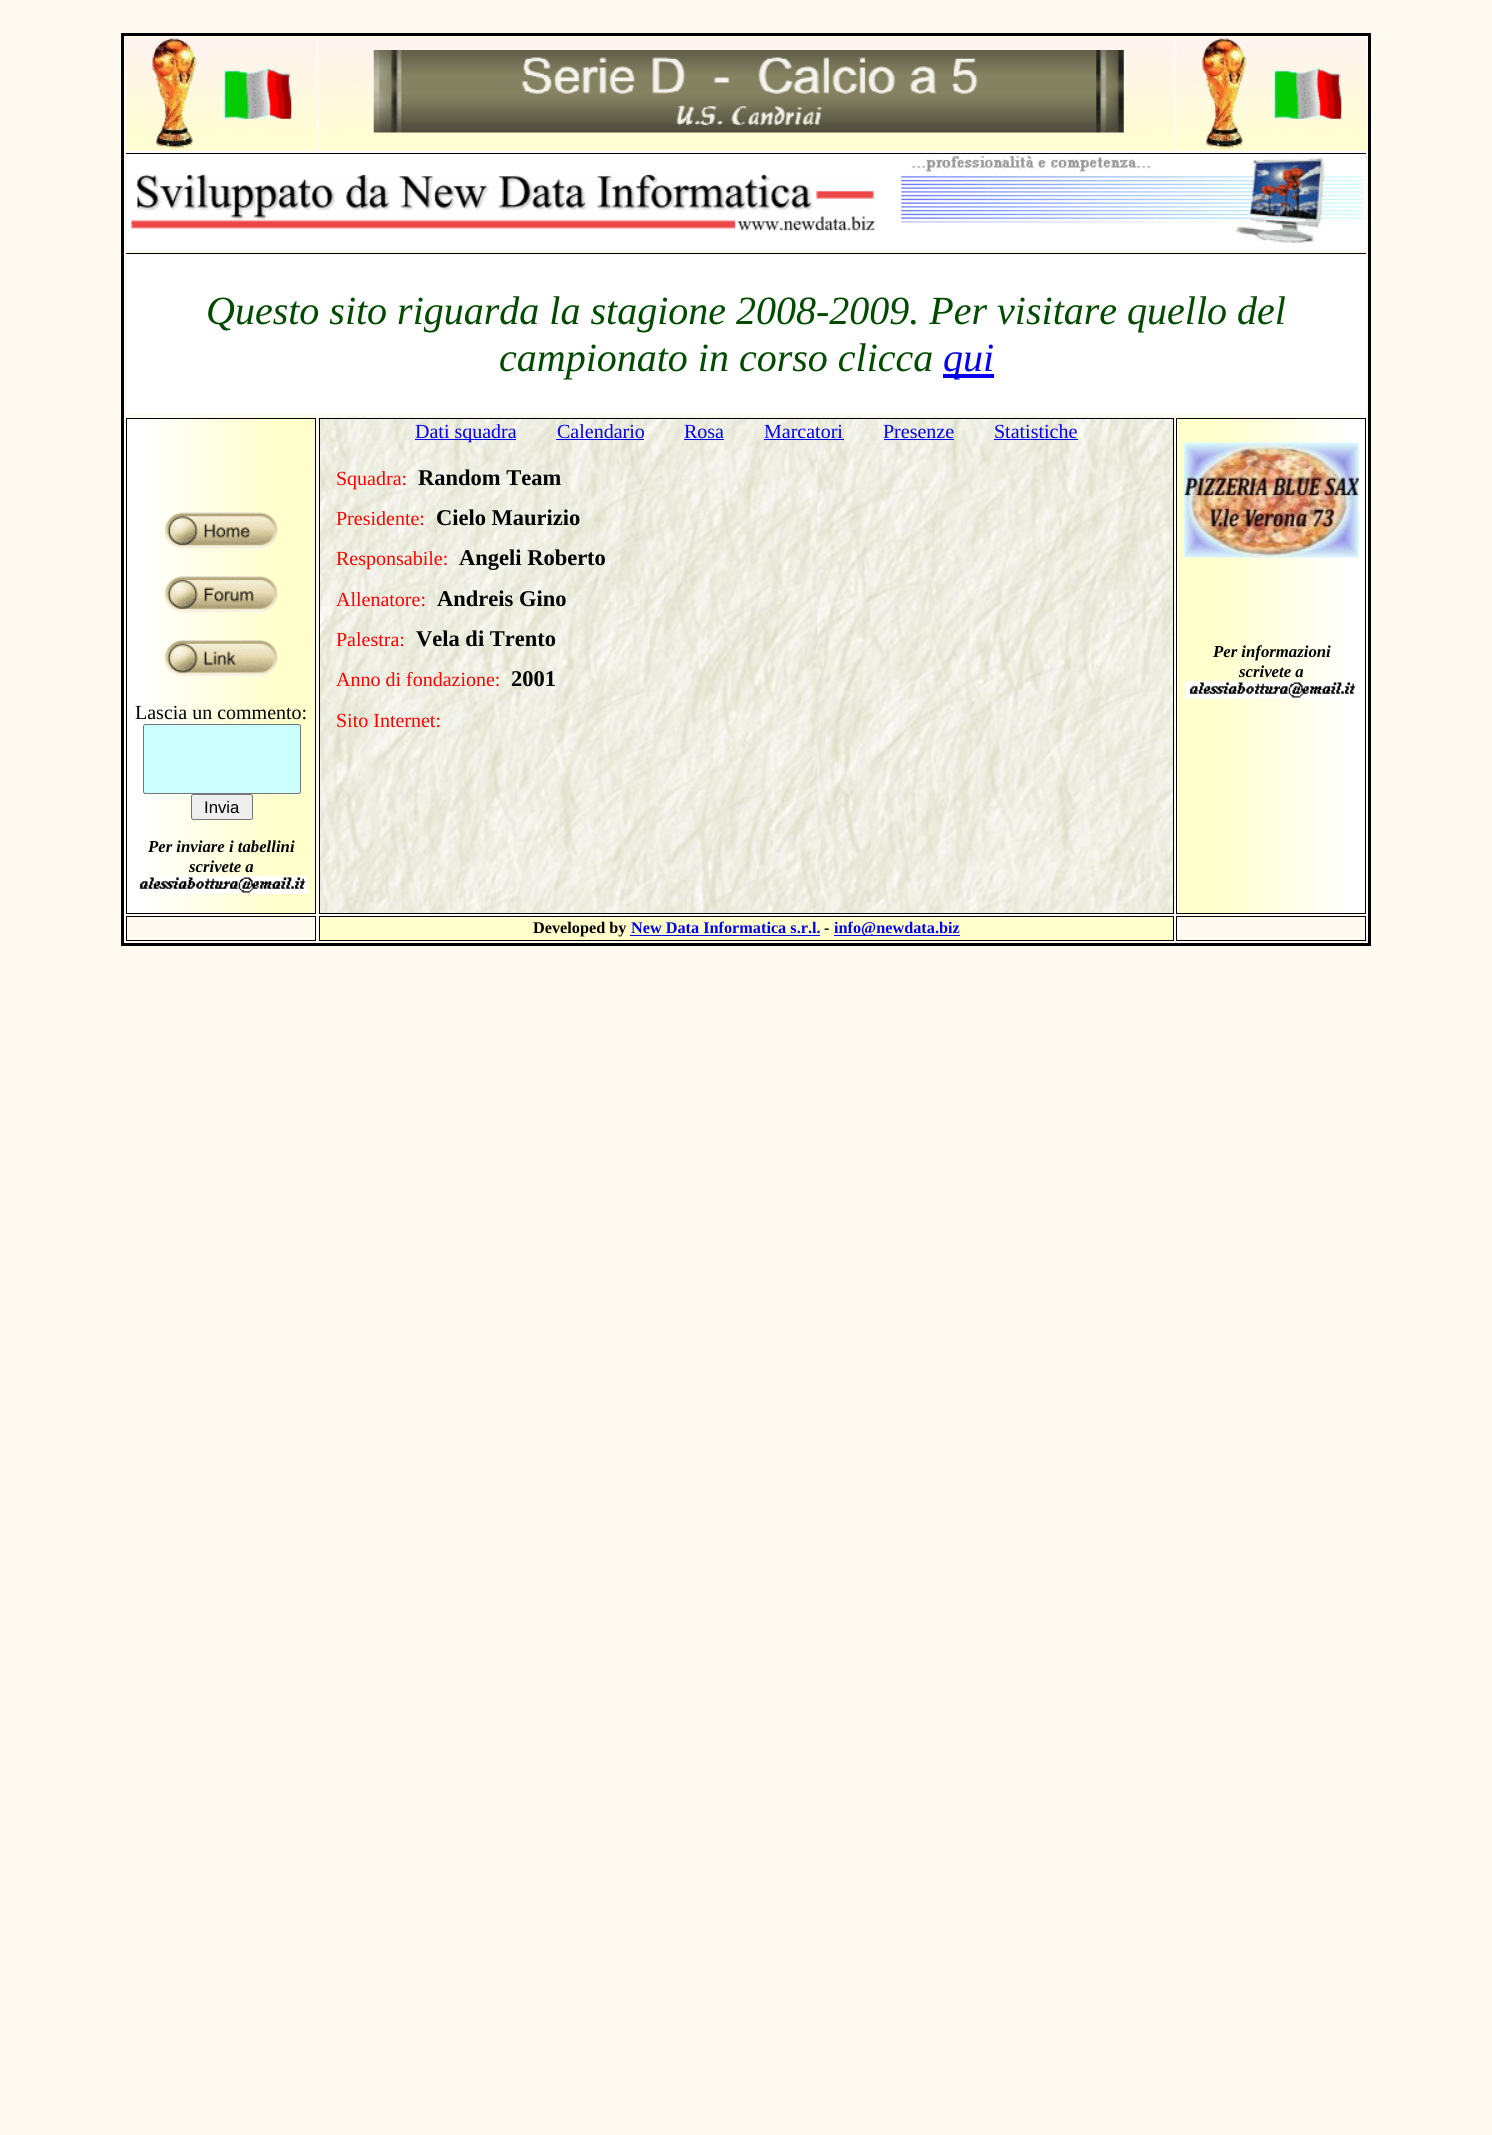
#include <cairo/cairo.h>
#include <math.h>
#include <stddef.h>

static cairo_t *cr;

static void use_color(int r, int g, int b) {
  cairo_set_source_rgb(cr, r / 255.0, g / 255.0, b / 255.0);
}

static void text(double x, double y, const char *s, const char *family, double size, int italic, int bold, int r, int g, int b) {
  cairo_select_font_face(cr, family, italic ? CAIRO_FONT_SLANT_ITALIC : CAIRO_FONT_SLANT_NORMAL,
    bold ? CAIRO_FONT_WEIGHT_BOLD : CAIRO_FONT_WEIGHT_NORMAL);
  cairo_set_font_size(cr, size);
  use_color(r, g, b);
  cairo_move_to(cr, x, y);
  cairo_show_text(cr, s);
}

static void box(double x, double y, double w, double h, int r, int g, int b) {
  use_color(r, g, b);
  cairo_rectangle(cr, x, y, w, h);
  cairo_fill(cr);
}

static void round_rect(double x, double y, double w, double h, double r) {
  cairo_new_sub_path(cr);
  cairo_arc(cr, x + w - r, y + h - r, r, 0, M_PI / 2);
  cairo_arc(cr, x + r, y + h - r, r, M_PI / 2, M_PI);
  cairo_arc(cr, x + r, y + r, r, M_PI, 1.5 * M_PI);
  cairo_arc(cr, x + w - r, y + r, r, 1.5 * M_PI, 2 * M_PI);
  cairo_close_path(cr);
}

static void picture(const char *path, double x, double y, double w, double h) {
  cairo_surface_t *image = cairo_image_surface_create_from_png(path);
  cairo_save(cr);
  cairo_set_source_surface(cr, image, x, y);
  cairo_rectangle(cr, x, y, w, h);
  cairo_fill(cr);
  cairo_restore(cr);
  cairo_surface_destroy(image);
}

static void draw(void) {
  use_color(255, 250, 240);
  cairo_paint(cr);
  cairo_rectangle(cr, 122.5, 34.5, 1247, 910);
  use_color(0, 0, 0);
  cairo_set_line_width(cr, 3);
  cairo_stroke(cr);
  picture("img_01.png", 126, 38, 191, 112);
  picture("img_02.png", 152, 38, 45, 111);
  picture("img_03.png", 223, 68, 69, 51);
  picture("img_04.png", 318, 38, 856, 112);
  picture("img_05.png", 373, 50, 751, 83);
  picture("img_06.png", 1176, 38, 191, 112);
  picture("img_07.png", 1202, 38, 45, 111);
  picture("img_03.png", 1273, 68, 69, 51);
  box(126, 154, 1240, 96, 255, 255, 255);
  box(126, 153, 1240, 1, 0, 0, 0);
  picture("img_08.png", 130, 173, 746, 58);
  picture("img_09.png", 901, 156, 464, 87);
  box(126, 254, 1240, 161, 255, 255, 255);
  box(126, 253, 1240, 1, 0, 0, 0);
  box(943, 374, 51, 4, 0, 0, 238);
  picture("img_10.png", 318, 417, 856, 497);
  cairo_rectangle(cr, 319.5, 418.5, 854, 495);
  use_color(0, 0, 0);
  cairo_set_line_width(cr, 1);
  cairo_stroke(cr);
  box(415, 439, 101, 1, 0, 0, 238);
  box(556, 439, 88, 1, 0, 0, 238);
  box(684, 439, 40, 1, 0, 0, 238);
  box(764, 439, 80, 1, 0, 0, 238);
  box(884, 439, 70, 1, 0, 0, 238);
  box(994, 439, 84, 1, 0, 0, 238);
  picture("img_11.png", 1176, 417, 190, 496);
  cairo_rectangle(cr, 1176.5, 418.5, 189, 495);
  use_color(0, 0, 0);
  cairo_stroke(cr);
  picture("img_12.png", 1183, 442, 176, 116);
  picture("img_13.png", 1185, 681, 171, 18);
  picture("img_14.png", 126, 417, 190, 496);
  cairo_rectangle(cr, 126.5, 418.5, 189, 495);
  cairo_stroke(cr);
  picture("img_15.png", 165, 512, 113, 37);
  picture("img_16.png", 165, 576, 113, 37);
  picture("img_17.png", 165, 640, 113, 37);
  use_color(204, 255, 255);
  round_rect(143.5, 724.5, 157, 69, 2);
  cairo_fill_preserve(cr);
  use_color(118, 118, 118);
  cairo_stroke(cr);
  use_color(239, 239, 239);
  round_rect(191.5, 794.5, 61, 25, 2);
  cairo_fill_preserve(cr);
  use_color(118, 118, 118);
  cairo_stroke(cr);
  picture("img_18.png", 139, 876, 169, 18);
  cairo_rectangle(cr, 126.5, 916.5, 189, 24);
  use_color(0, 0, 0);
  cairo_stroke(cr);
  use_color(255, 255, 204);
  cairo_rectangle(cr, 319.5, 916.5, 854, 24);
  cairo_fill_preserve(cr);
  use_color(0, 0, 0);
  cairo_stroke(cr);
  box(630, 935, 190, 1, 0, 0, 238);
  box(834, 935, 126, 1, 0, 0, 238);
  cairo_rectangle(cr, 1176.5, 916.5, 189, 24);
  use_color(0, 0, 0);
  cairo_stroke(cr);
  text(206, 324, "Questo sito riguarda la stagione 2008-2009. Per visitare quello del", "Liberation Serif", 40, 1, 0, 0, 74, 0);
  text(499, 371, "campionato in corso clicca", "Liberation Serif", 40, 1, 0, 0, 74, 0);
  text(943, 371, "qui", "Liberation Serif", 40, 1, 0, 0, 0, 238);
  text(415, 438, "Dati squadra", "Liberation Serif", 20, 0, 0, 0, 0, 238);
  text(557, 438, "Calendario", "Liberation Serif", 20, 0, 0, 0, 0, 238);
  text(684, 438, "Rosa", "Liberation Serif", 20, 0, 0, 0, 0, 238);
  text(764, 438, "Marcatori", "Liberation Serif", 20, 0, 0, 0, 0, 238);
  text(883, 438, "Presenze", "Liberation Serif", 20, 0, 0, 0, 0, 238);
  text(994, 438, "Statistiche", "Liberation Serif", 20, 0, 0, 0, 0, 238);
  text(336, 485, "Squadra:", "Liberation Serif", 20, 0, 0, 255, 0, 0);
  text(418, 485, "Random Team", "Liberation Serif", 22.5, 0, 1, 0, 0, 0);
  text(336, 525, "Presidente:", "Liberation Serif", 20, 0, 0, 255, 0, 0);
  text(436, 525, "Cielo Maurizio", "Liberation Serif", 22.5, 0, 1, 0, 0, 0);
  text(336, 565, "Responsabile:", "Liberation Serif", 20, 0, 0, 255, 0, 0);
  text(459, 565, "Angeli Roberto", "Liberation Serif", 22.5, 0, 1, 0, 0, 0);
  text(336, 606, "Allenatore:", "Liberation Serif", 20, 0, 0, 255, 0, 0);
  text(437, 606, "Andreis Gino", "Liberation Serif", 22.5, 0, 1, 0, 0, 0);
  text(336, 646, "Palestra:", "Liberation Serif", 20, 0, 0, 255, 0, 0);
  text(416, 646, "Vela di Trento", "Liberation Serif", 22.5, 0, 1, 0, 0, 0);
  text(336, 686, "Anno di fondazione:", "Liberation Serif", 20, 0, 0, 255, 0, 0);
  text(511, 686, "2001", "Liberation Serif", 22.5, 0, 1, 0, 0, 0);
  text(336, 727, "Sito Internet:", "Liberation Serif", 20, 0, 0, 255, 0, 0);
  text(1213, 657, "Per informazioni", "Liberation Serif", 16.75, 1, 1, 0, 0, 0);
  text(1239, 677, "scrivete a", "Liberation Serif", 16.75, 1, 1, 0, 0, 0);
  text(135, 719, "Lascia un commento:", "Liberation Serif", 20, 0, 0, 0, 0, 0);
  text(204, 813, "Invia", "Liberation Sans", 16.75, 0, 0, 0, 0, 0);
  text(148, 852, "Per inviare i tabellini", "Liberation Serif", 16.75, 1, 1, 0, 0, 0);
  text(189, 872, "scrivete a", "Liberation Serif", 16.75, 1, 1, 0, 0, 0);
  text(533, 933, "Developed by", "Liberation Serif", 16.25, 0, 1, 0, 0, 0);
  text(631, 933, "New Data Informatica s.r.l.", "Liberation Serif", 16.25, 0, 1, 0, 0, 238);
  text(824, 933, "-", "Liberation Serif", 16.25, 0, 1, 0, 0, 0);
  text(834, 933, "info@newdata.biz", "Liberation Serif", 16.25, 0, 1, 0, 0, 238);
}

int main(void) {
  cairo_surface_t *surface = cairo_image_surface_create(CAIRO_FORMAT_RGB24, 1492, 2135);
  cr = cairo_create(surface);
  cairo_font_options_t *options = cairo_font_options_create();
  cairo_font_options_set_hint_metrics(options, CAIRO_HINT_METRICS_OFF);
  cairo_font_options_set_hint_style(options, CAIRO_HINT_STYLE_NONE);
  cairo_set_font_options(cr, options);
  cairo_set_miter_limit(cr, 4);
  draw();
  cairo_surface_write_to_png(surface, "out.png");
  cairo_font_options_destroy(options);
  cairo_destroy(cr);
  cairo_surface_destroy(surface);
  return 0;
}
